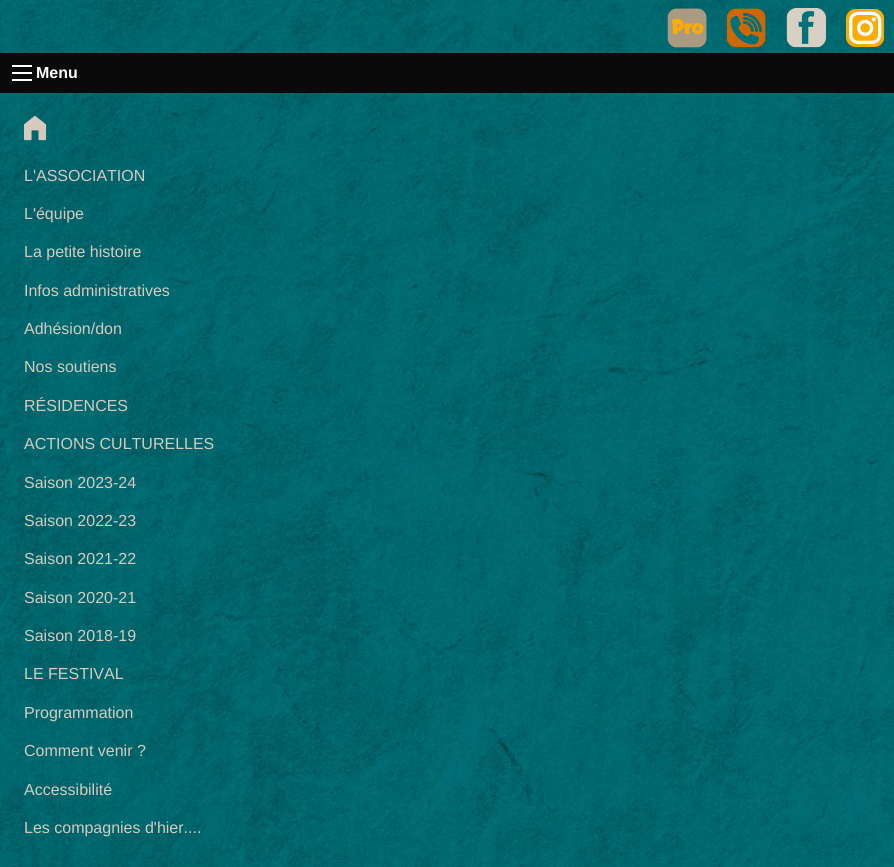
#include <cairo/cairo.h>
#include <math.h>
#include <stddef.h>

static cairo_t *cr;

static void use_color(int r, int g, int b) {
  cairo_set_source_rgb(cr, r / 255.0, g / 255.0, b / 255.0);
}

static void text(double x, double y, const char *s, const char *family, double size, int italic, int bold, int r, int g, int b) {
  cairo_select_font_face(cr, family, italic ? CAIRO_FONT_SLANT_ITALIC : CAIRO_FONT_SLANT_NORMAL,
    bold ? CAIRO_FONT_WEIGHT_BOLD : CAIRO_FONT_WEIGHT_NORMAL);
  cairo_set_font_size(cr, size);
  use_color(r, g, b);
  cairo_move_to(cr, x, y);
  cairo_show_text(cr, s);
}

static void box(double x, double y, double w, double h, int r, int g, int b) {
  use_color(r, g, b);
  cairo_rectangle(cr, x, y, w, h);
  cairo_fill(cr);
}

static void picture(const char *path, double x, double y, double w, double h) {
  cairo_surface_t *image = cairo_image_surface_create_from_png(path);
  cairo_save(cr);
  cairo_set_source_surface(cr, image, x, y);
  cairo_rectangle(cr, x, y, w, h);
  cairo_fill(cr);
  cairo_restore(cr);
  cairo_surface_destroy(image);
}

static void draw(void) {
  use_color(255, 255, 255);
  cairo_paint(cr);
  picture("img_01.png", 0, 0, 894, 867);
  picture("img_02.png", 667, 8, 40, 40);
  picture("img_03.png", 726, 8, 40, 40);
  picture("img_04.png", 786, 8, 40, 40);
  picture("img_05.png", 846, 9, 38, 38);
  box(0, 53, 894, 40, 10, 10, 10);
  box(12, 79, 20, 2, 254, 254, 254);
  box(12, 72, 20, 2, 254, 254, 254);
  box(12, 65, 20, 2, 254, 254, 254);
  picture("img_06.png", 24, 115, 23, 26);
  text(36, 78, "Menu", "Liberation Sans", 16, 0, 1, 254, 254, 254);
  text(24, 181, "L'ASSOCIATION", "Liberation Sans", 16, 0, 0, 214, 202, 190);
  text(24, 219, "L'équipe", "Liberation Sans", 16, 0, 0, 214, 202, 190);
  text(24, 257, "La petite histoire", "Liberation Sans", 16, 0, 0, 214, 202, 190);
  text(24, 296, "Infos administratives", "Liberation Sans", 16, 0, 0, 214, 202, 190);
  text(24, 334, "Adhésion/don", "Liberation Sans", 16, 0, 0, 214, 202, 190);
  text(24, 372, "Nos soutiens", "Liberation Sans", 16, 0, 0, 214, 202, 190);
  text(24, 411, "RÉSIDENCES", "Liberation Sans", 16, 0, 0, 214, 202, 190);
  text(24, 449, "ACTIONS CULTURELLES", "Liberation Sans", 16, 0, 0, 214, 202, 190);
  text(24, 488, "Saison 2023-24", "Liberation Sans", 16, 0, 0, 214, 202, 190);
  text(24, 526, "Saison 2022-23", "Liberation Sans", 16, 0, 0, 214, 202, 190);
  text(24, 564, "Saison 2021-22", "Liberation Sans", 16, 0, 0, 214, 202, 190);
  text(24, 603, "Saison 2020-21", "Liberation Sans", 16, 0, 0, 214, 202, 190);
  text(24, 641, "Saison 2018-19", "Liberation Sans", 16, 0, 0, 214, 202, 190);
  text(24, 679, "LE FESTIVAL", "Liberation Sans", 16, 0, 0, 214, 202, 190);
  text(24, 718, "Programmation", "Liberation Sans", 16, 0, 0, 214, 202, 190);
  text(24, 756, "Comment venir ?", "Liberation Sans", 16, 0, 0, 214, 202, 190);
  text(24, 795, "Accessibilité", "Liberation Sans", 16, 0, 0, 214, 202, 190);
  text(24, 833, "Les compagnies d'hier....", "Liberation Sans", 16, 0, 0, 214, 202, 190);
}

int main(void) {
  cairo_surface_t *surface = cairo_image_surface_create(CAIRO_FORMAT_RGB24, 894, 867);
  cr = cairo_create(surface);
  cairo_font_options_t *options = cairo_font_options_create();
  cairo_font_options_set_hint_metrics(options, CAIRO_HINT_METRICS_OFF);
  cairo_font_options_set_hint_style(options, CAIRO_HINT_STYLE_NONE);
  cairo_set_font_options(cr, options);
  cairo_set_miter_limit(cr, 4);
  draw();
  cairo_surface_write_to_png(surface, "out.png");
  cairo_font_options_destroy(options);
  cairo_destroy(cr);
  cairo_surface_destroy(surface);
  return 0;
}
